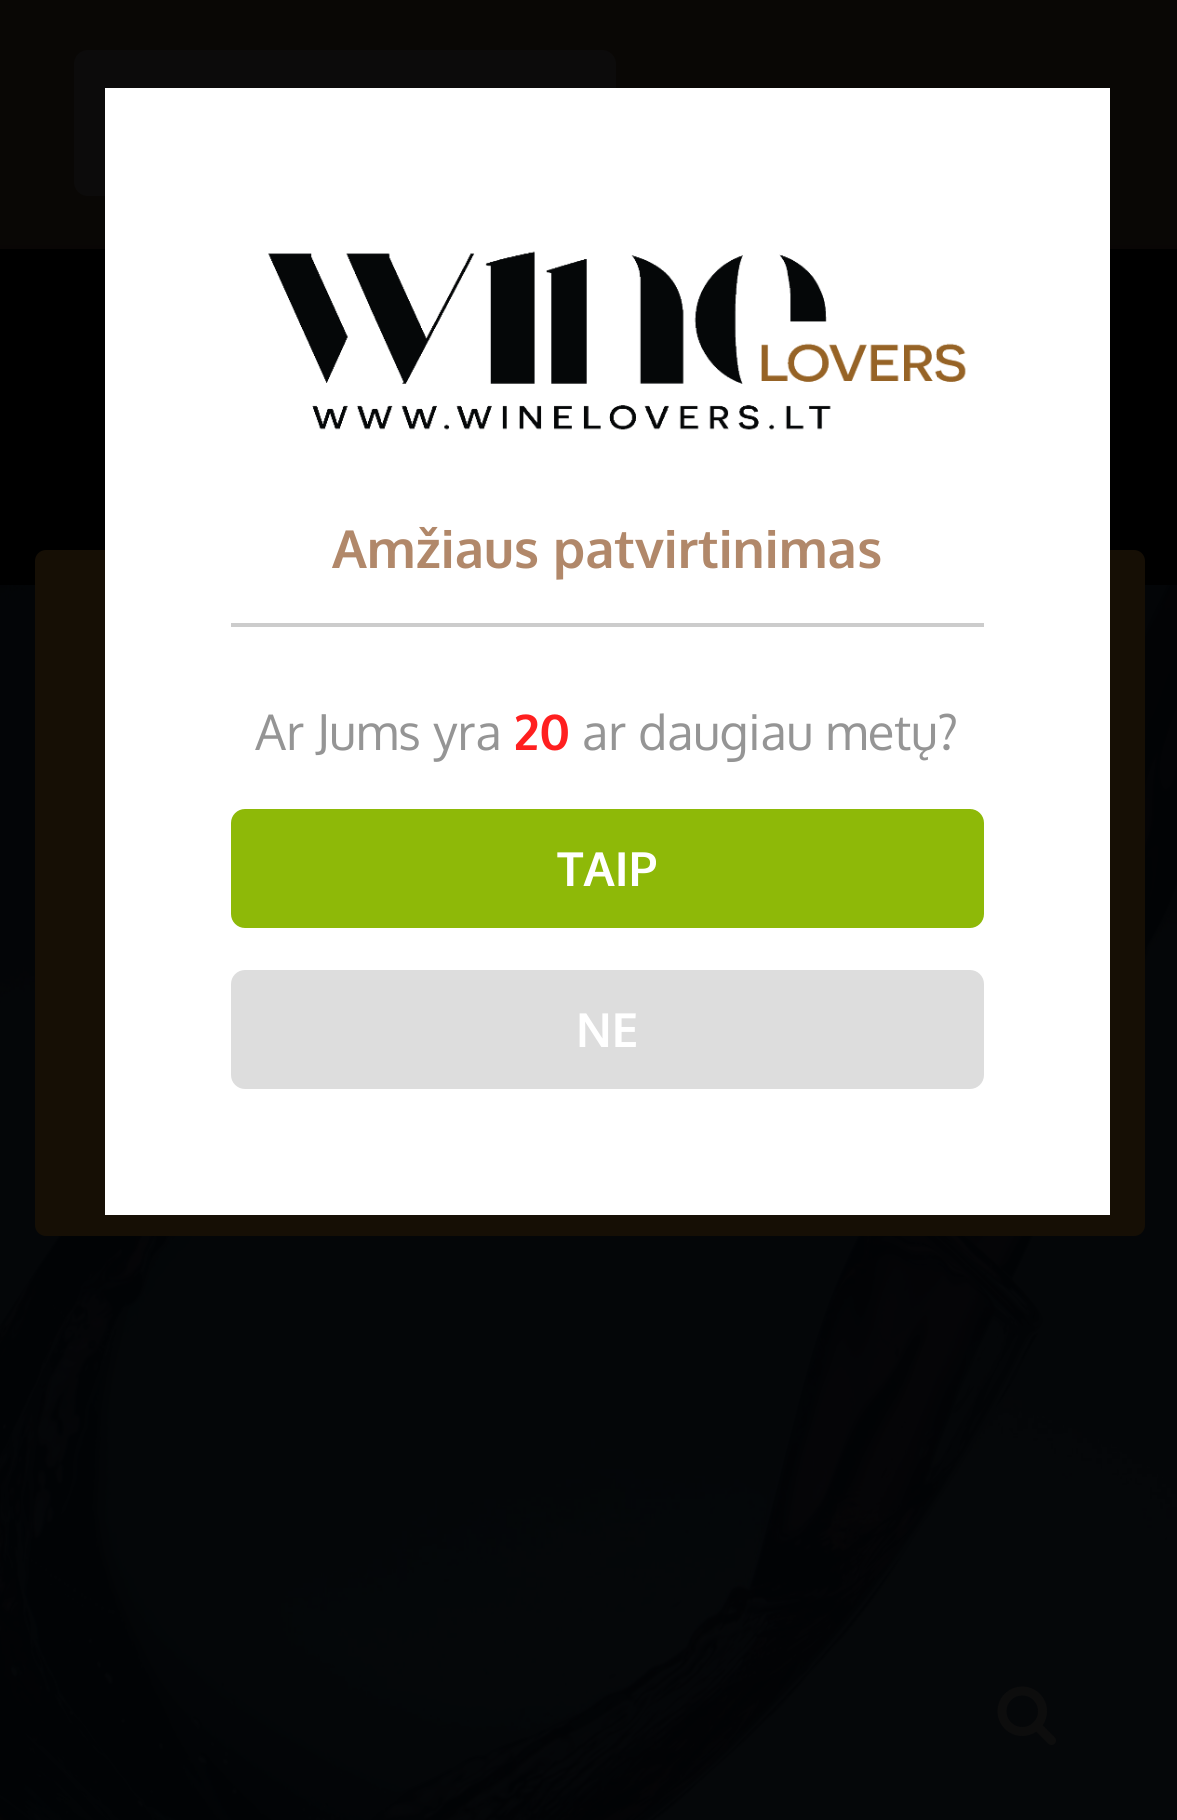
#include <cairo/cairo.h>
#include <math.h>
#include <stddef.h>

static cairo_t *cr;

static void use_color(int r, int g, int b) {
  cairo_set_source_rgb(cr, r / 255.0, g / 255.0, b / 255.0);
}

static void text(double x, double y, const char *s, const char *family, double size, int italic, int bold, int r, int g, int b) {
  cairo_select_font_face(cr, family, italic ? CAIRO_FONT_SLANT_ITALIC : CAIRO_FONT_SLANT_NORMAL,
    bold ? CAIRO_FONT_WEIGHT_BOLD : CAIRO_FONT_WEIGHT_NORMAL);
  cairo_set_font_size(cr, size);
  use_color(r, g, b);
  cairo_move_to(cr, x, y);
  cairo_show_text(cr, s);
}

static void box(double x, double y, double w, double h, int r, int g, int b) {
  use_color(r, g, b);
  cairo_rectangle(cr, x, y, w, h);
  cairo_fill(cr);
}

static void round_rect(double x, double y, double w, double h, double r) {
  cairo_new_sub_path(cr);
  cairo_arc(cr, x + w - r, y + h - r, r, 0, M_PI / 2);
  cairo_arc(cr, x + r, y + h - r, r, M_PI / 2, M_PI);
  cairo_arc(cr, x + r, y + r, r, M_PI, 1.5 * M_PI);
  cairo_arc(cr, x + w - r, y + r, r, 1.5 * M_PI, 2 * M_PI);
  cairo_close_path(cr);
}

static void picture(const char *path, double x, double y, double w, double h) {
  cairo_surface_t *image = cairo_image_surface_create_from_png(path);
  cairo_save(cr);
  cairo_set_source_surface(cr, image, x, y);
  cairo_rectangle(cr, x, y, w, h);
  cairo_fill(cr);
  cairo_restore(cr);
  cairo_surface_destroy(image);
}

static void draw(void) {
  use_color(2, 5, 7);
  cairo_paint(cr);
  box(0, 245, 1177, 4, 9, 6, 5);
  box(0, 0, 1177, 245, 9, 7, 5);
  use_color(12, 11, 11);
  round_rect(72, 48, 546, 150, 16);
  cairo_fill_preserve(cr);
  use_color(9, 7, 5);
  cairo_set_line_width(cr, 4);
  cairo_stroke(cr);
  box(0, 249, 1177, 336, 0, 0, 0);
  picture("img_02.png", 0, 585, 1177, 1235);
  use_color(22, 15, 5);
  round_rect(35, 550, 1110, 686, 11);
  cairo_fill(cr);
  box(105, 88, 1005, 1127, 255, 255, 255);
  picture("img_01.png", 268, 251, 698, 179);
  box(231, 623, 753, 4, 204, 204, 204);
  use_color(142, 185, 8);
  round_rect(231, 809, 753, 119, 14);
  cairo_fill(cr);
  use_color(221, 221, 221);
  round_rect(231, 970, 753, 119, 14);
  cairo_fill(cr);
  picture("img_03.png", 997, 1686, 59, 59);
  text(332, 568, "Amžiaus patvirtinimas", "Oxygen", 52.5, 0, 1, 177, 136, 106);
  text(255, 750, "Ar Jums yra", "Oxygen", 49, 0, 0, 149, 149, 149);
  text(514, 750, "20", "Oxygen", 49, 0, 1, 255, 31, 31);
  text(582, 750, "ar daugiau metų?", "Oxygen", 49, 0, 0, 149, 149, 149);
  text(557, 886, "TAIP", "Oxygen", 47, 0, 1, 255, 255, 255);
  text(576, 1047, "NE", "Oxygen", 47, 0, 1, 255, 255, 255);
}

int main(void) {
  cairo_surface_t *surface = cairo_image_surface_create(CAIRO_FORMAT_RGB24, 1177, 1820);
  cr = cairo_create(surface);
  cairo_font_options_t *options = cairo_font_options_create();
  cairo_font_options_set_hint_metrics(options, CAIRO_HINT_METRICS_OFF);
  cairo_font_options_set_hint_style(options, CAIRO_HINT_STYLE_NONE);
  cairo_set_font_options(cr, options);
  cairo_set_miter_limit(cr, 4);
  draw();
  cairo_surface_write_to_png(surface, "out.png");
  cairo_font_options_destroy(options);
  cairo_destroy(cr);
  cairo_surface_destroy(surface);
  return 0;
}
